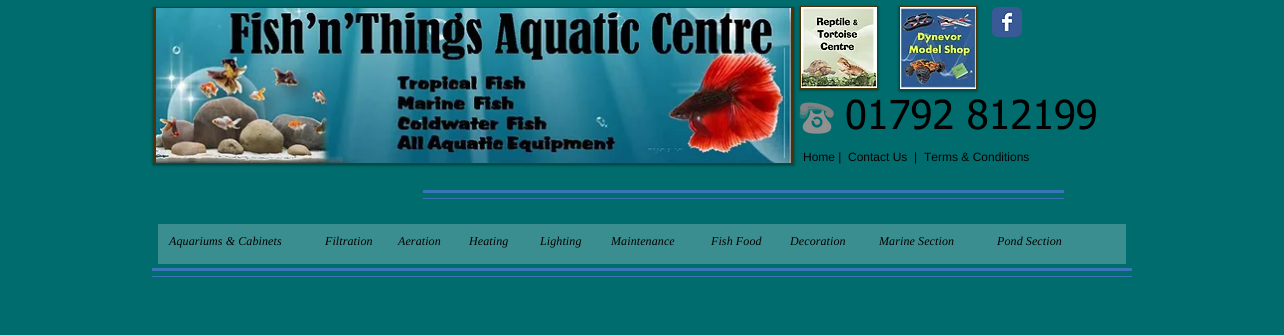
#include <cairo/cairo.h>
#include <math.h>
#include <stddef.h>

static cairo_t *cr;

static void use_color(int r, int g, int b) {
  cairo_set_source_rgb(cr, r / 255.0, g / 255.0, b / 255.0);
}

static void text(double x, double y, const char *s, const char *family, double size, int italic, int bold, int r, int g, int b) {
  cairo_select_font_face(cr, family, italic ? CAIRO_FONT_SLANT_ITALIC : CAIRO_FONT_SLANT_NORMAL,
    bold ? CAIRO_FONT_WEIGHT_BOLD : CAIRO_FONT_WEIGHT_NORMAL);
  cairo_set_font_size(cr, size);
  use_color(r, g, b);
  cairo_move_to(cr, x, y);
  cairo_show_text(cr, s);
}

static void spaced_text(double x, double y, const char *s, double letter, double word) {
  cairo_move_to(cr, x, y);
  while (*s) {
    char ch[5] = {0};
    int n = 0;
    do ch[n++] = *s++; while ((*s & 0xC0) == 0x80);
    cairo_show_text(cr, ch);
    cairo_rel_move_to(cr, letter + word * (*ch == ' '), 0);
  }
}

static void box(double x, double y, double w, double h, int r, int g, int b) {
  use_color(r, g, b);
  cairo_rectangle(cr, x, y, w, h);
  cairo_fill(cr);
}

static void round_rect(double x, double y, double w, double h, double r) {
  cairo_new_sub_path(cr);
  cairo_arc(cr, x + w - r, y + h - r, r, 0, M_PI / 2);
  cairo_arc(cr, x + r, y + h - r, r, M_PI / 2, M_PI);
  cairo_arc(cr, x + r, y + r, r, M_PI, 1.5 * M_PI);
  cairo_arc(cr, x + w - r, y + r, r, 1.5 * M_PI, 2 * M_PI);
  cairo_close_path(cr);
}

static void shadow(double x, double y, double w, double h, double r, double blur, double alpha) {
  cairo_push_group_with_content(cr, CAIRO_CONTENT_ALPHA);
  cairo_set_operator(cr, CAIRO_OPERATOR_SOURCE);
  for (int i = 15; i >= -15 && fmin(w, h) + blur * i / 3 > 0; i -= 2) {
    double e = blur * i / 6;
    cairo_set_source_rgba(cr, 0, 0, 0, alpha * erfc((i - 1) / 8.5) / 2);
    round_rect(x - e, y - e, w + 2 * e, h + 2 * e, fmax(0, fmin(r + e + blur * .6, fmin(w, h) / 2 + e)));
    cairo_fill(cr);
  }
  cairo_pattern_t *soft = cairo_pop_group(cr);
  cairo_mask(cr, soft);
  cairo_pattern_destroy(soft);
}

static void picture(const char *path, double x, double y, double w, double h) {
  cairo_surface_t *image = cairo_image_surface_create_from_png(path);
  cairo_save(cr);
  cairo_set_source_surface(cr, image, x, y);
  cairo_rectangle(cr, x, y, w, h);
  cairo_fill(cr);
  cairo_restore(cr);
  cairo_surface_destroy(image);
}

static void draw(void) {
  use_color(0, 108, 109);
  cairo_paint(cr);
  use_color(0, 0, 0);
  shadow(153, 8, 641, 157, 0, 1.5, 0.5);
  box(153, 7, 641, 157, 79, 51, 6);
  picture("img_01.png", 156, 8, 635, 155);
  use_color(0, 0, 0);
  shadow(800, 7, 78, 83, 0, 1.5, 0.5);
  box(800, 6, 78, 83, 79, 51, 6);
  picture("img_02.png", 801, 7, 76, 81);
  use_color(0, 0, 0);
  shadow(899, 7, 78, 84, 0, 1.5, 0.5);
  box(899, 6, 78, 84, 79, 51, 6);
  picture("img_03.png", 900, 7, 76, 82);
  picture("img_04.png", 992, 7, 30, 30);
  picture("img_05.png", 799, 102, 35, 32);
  box(423, 190, 641, 3, 57, 117, 182);
  box(423, 198, 641, 1, 57, 117, 182);
  box(158, 224, 968, 40, 59, 142, 143);
  box(152, 268, 980, 3, 57, 117, 182);
  box(152, 276, 980, 1, 57, 117, 182);
  text(845, 129, "01792 812199", "tahoma", 40, 0, 0, 0, 0, 0);
  text(803, 161, "Home |", "Liberation Sans", 12, 0, 0, 0, 0, 0);
  text(848, 161, "Contact Us", "Liberation Sans", 12, 0, 0, 0, 0, 0);
  text(914, 161, "|", "Liberation Sans", 12, 0, 0, 0, 0, 0);
  text(924, 161, "Terms & Conditions", "Liberation Sans", 12, 0, 0, 0, 0, 0);
  cairo_select_font_face(cr, "Liberation Serif", CAIRO_FONT_SLANT_ITALIC, CAIRO_FONT_WEIGHT_NORMAL);
  spaced_text(169, 245, "Aquariums & Cabinets", 0.1, 0);
  spaced_text(325, 245, "Filtration", 0.1, 0);
  spaced_text(398, 245, "Aeration", 0.1, 0);
  spaced_text(469, 245, "Heating", 0.1, 0);
  spaced_text(540, 245, "Lighting", 0.1, 0);
  spaced_text(611, 245, "Maintenance", 0.1, 0);
  spaced_text(711, 245, "Fish Food", 0.1, 0);
  spaced_text(790, 245, "Decoration", 0.1, 0);
  spaced_text(879, 245, "Marine Section", 0.1, 0);
  spaced_text(997, 245, "Pond Section", 0.1, 0);
}

int main(void) {
  cairo_surface_t *surface = cairo_image_surface_create(CAIRO_FORMAT_RGB24, 1284, 335);
  cr = cairo_create(surface);
  cairo_font_options_t *options = cairo_font_options_create();
  cairo_font_options_set_hint_metrics(options, CAIRO_HINT_METRICS_OFF);
  cairo_font_options_set_hint_style(options, CAIRO_HINT_STYLE_NONE);
  cairo_set_font_options(cr, options);
  cairo_set_miter_limit(cr, 4);
  draw();
  cairo_surface_write_to_png(surface, "out.png");
  cairo_font_options_destroy(options);
  cairo_destroy(cr);
  cairo_surface_destroy(surface);
  return 0;
}
